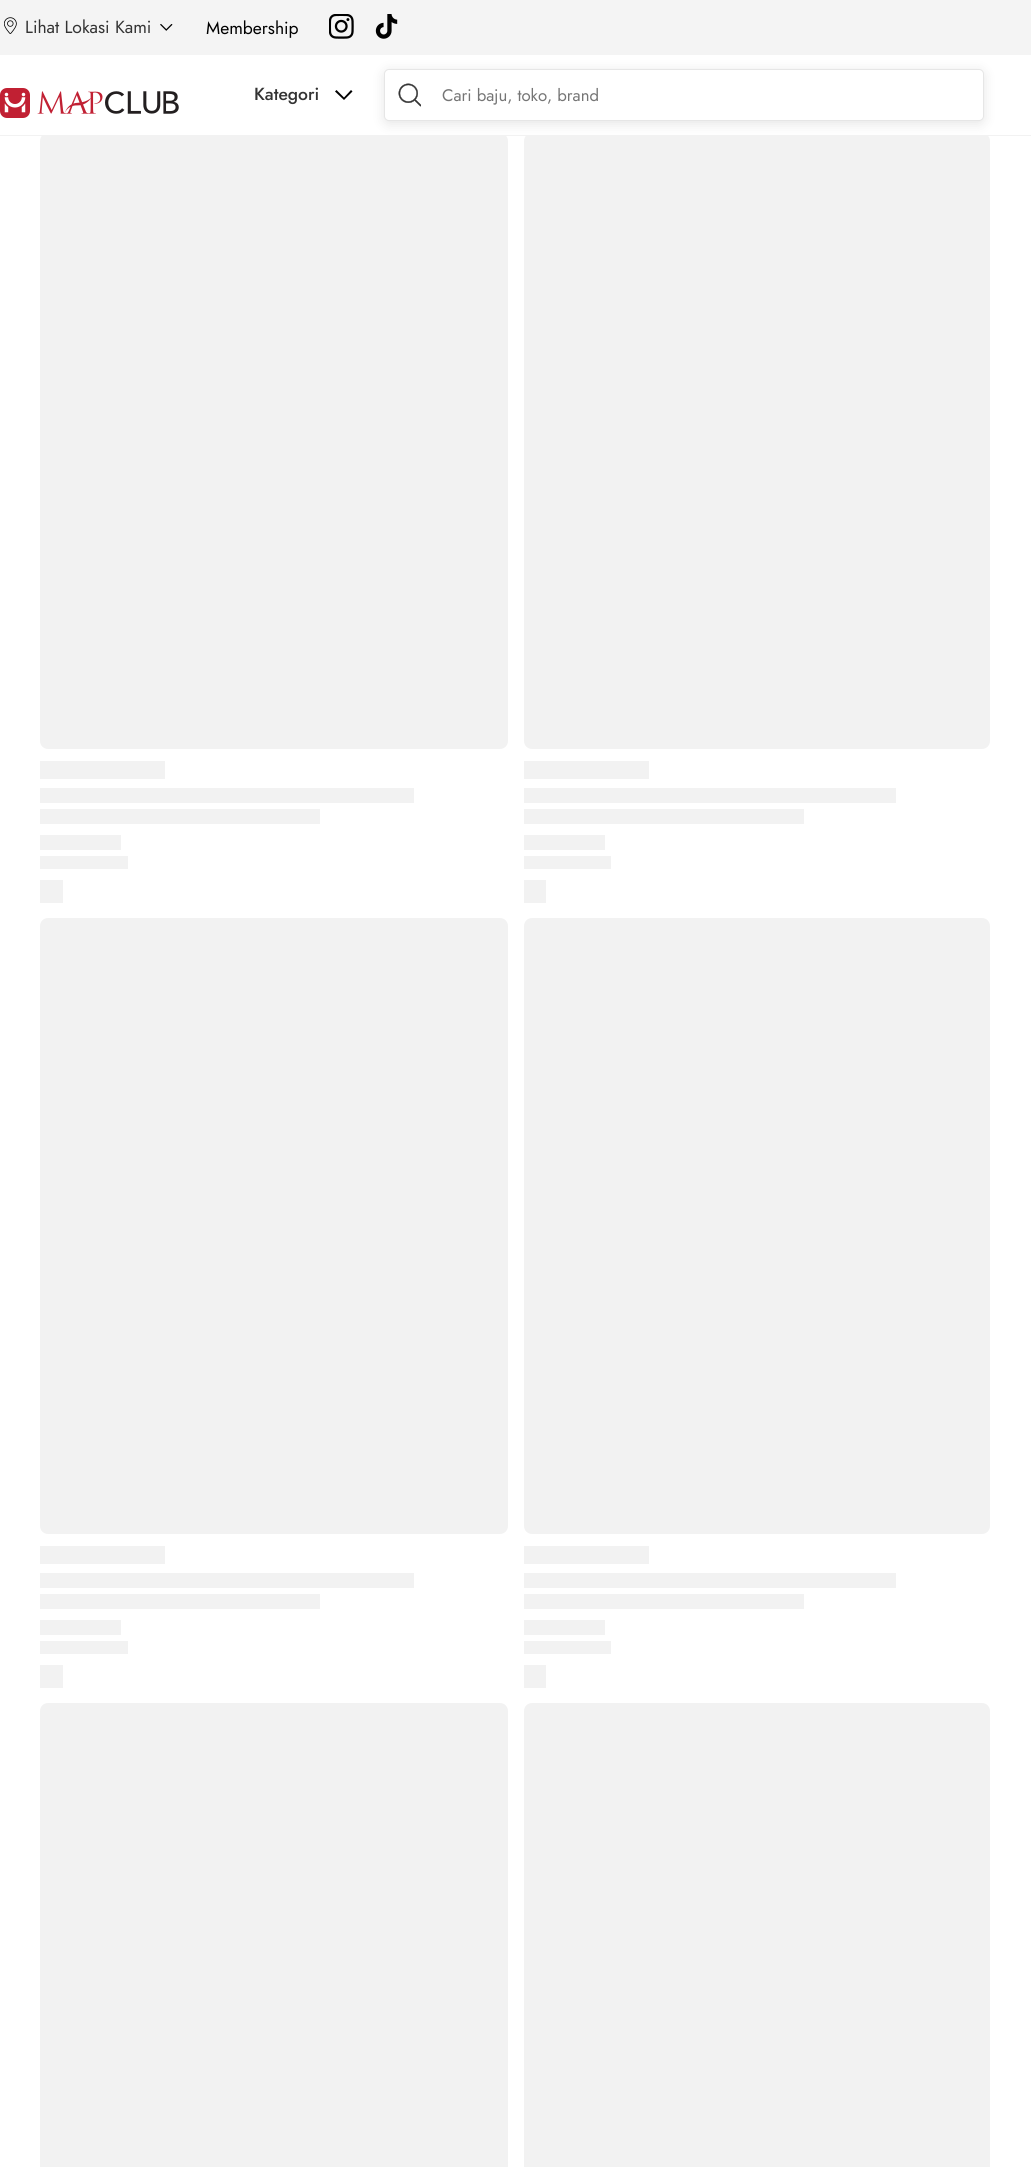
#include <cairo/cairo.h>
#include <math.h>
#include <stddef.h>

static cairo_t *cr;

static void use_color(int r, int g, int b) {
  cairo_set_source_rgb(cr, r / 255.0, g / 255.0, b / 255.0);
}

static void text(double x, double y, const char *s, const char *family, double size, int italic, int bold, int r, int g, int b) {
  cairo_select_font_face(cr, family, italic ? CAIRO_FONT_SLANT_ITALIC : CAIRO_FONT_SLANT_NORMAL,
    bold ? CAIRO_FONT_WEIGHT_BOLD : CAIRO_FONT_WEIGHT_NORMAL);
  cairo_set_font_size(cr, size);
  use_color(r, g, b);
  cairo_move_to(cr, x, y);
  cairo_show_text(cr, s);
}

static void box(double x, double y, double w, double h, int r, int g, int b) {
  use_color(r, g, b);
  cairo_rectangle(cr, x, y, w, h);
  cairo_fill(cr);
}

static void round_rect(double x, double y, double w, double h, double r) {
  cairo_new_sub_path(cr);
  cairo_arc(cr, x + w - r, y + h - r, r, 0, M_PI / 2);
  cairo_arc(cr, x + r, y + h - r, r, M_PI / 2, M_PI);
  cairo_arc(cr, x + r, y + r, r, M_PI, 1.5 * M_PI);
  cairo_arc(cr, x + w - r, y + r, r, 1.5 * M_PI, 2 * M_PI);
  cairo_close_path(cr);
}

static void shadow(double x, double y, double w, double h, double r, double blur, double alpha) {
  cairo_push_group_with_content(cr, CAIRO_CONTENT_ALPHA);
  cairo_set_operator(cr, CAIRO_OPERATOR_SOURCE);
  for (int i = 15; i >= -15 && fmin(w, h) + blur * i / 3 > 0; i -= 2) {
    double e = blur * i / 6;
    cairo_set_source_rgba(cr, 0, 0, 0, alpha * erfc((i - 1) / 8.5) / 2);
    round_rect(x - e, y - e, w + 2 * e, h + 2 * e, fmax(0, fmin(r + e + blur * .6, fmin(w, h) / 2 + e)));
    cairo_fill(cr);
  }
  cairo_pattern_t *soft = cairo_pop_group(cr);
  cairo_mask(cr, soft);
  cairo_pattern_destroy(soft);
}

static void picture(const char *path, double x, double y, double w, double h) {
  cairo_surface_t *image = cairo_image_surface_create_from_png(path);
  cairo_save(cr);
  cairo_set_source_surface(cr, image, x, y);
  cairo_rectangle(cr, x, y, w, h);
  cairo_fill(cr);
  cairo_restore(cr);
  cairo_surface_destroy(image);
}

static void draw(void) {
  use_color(255, 255, 255);
  cairo_paint(cr);
  use_color(242, 242, 242);
  round_rect(40, 133, 468, 616, 8);
  cairo_fill(cr);
  round_rect(524, 133, 466, 616, 8);
  cairo_fill(cr);
  box(43, 133, 944, 2, 255, 255, 255);
  box(0, 0, 1031, 55, 244, 244, 244);
  picture("img_01.png", 4, 17, 13, 17);
  picture("img_02.png", 160, 24, 13, 7);
  picture("img_03.png", 329, 14, 25, 25);
  picture("img_04.png", 375, 14, 23, 25);
  box(0, 135, 1031, 1, 242, 242, 242);
  picture("img_05.png", 0, 88, 179, 30);
  use_color(0, 0, 0);
  cairo_new_path(cr);
  cairo_move_to(cr, 335, 91.5);
  cairo_line_to(cr, 336.5, 90);
  cairo_line_to(cr, 344, 97.5);
  cairo_line_to(cr, 351, 90);
  cairo_line_to(cr, 352.5, 91.5);
  cairo_line_to(cr, 344, 100);
  cairo_close_path(cr);
  cairo_fill(cr);
  use_color(0, 0, 0);
  shadow(384, 71, 600, 53, 5, 6, 0.1);
  use_color(255, 255, 255);
  round_rect(384, 69, 600, 52, 5);
  cairo_fill(cr);
  round_rect(384.5, 69.5, 599, 51, 4.5);
  cairo_set_source_rgba(cr, 0, 0, 0, 0.1);
  cairo_set_line_width(cr, 1);
  cairo_stroke(cr);
  picture("img_06.png", 398, 83, 23, 24);
  box(40, 880, 23, 23, 242, 242, 242);
  box(40, 856, 88, 13, 242, 242, 242);
  box(40, 835, 81, 15, 242, 242, 242);
  box(40, 809, 280, 15, 242, 242, 242);
  box(40, 788, 374, 15, 242, 242, 242);
  box(40, 761, 125, 18, 242, 242, 242);
  box(524, 880, 22, 23, 242, 242, 242);
  box(524, 856, 87, 13, 242, 242, 242);
  box(524, 835, 81, 15, 242, 242, 242);
  box(524, 809, 280, 15, 242, 242, 242);
  box(524, 788, 372, 15, 242, 242, 242);
  box(524, 761, 125, 18, 242, 242, 242);
  round_rect(40, 918, 468, 616, 8);
  cairo_fill(cr);
  box(40, 1665, 23, 23, 242, 242, 242);
  box(40, 1641, 88, 13, 242, 242, 242);
  box(40, 1620, 81, 15, 242, 242, 242);
  box(40, 1594, 280, 15, 242, 242, 242);
  box(40, 1573, 374, 15, 242, 242, 242);
  box(40, 1546, 125, 18, 242, 242, 242);
  round_rect(524, 918, 466, 616, 8);
  cairo_fill(cr);
  box(524, 1665, 22, 23, 242, 242, 242);
  box(524, 1641, 87, 13, 242, 242, 242);
  box(524, 1620, 81, 15, 242, 242, 242);
  box(524, 1594, 280, 15, 242, 242, 242);
  box(524, 1573, 372, 15, 242, 242, 242);
  box(524, 1546, 125, 18, 242, 242, 242);
  round_rect(40, 1703, 468, 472, 8);
  cairo_fill(cr);
  round_rect(524, 1703, 466, 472, 8);
  cairo_fill(cr);
  text(25, 33, "Lihat Lokasi Kami", "Jost", 17.5, 0, 0, 51, 51, 51);
  text(206, 34, "Membership", "Jost", 17.5, 0, 0, 0, 0, 0);
  text(254, 100, "Kategori", "Jost Medium", 17.5, 0, 0, 51, 51, 51);
  text(442, 101, "Cari baju, toko, brand", "Jost", 16.75, 0, 0, 117, 117, 117);
}

int main(void) {
  cairo_surface_t *surface = cairo_image_surface_create(CAIRO_FORMAT_RGB24, 1031, 2167);
  cr = cairo_create(surface);
  cairo_font_options_t *options = cairo_font_options_create();
  cairo_font_options_set_hint_metrics(options, CAIRO_HINT_METRICS_OFF);
  cairo_font_options_set_hint_style(options, CAIRO_HINT_STYLE_NONE);
  cairo_set_font_options(cr, options);
  cairo_set_miter_limit(cr, 4);
  draw();
  cairo_surface_write_to_png(surface, "out.png");
  cairo_font_options_destroy(options);
  cairo_destroy(cr);
  cairo_surface_destroy(surface);
  return 0;
}
